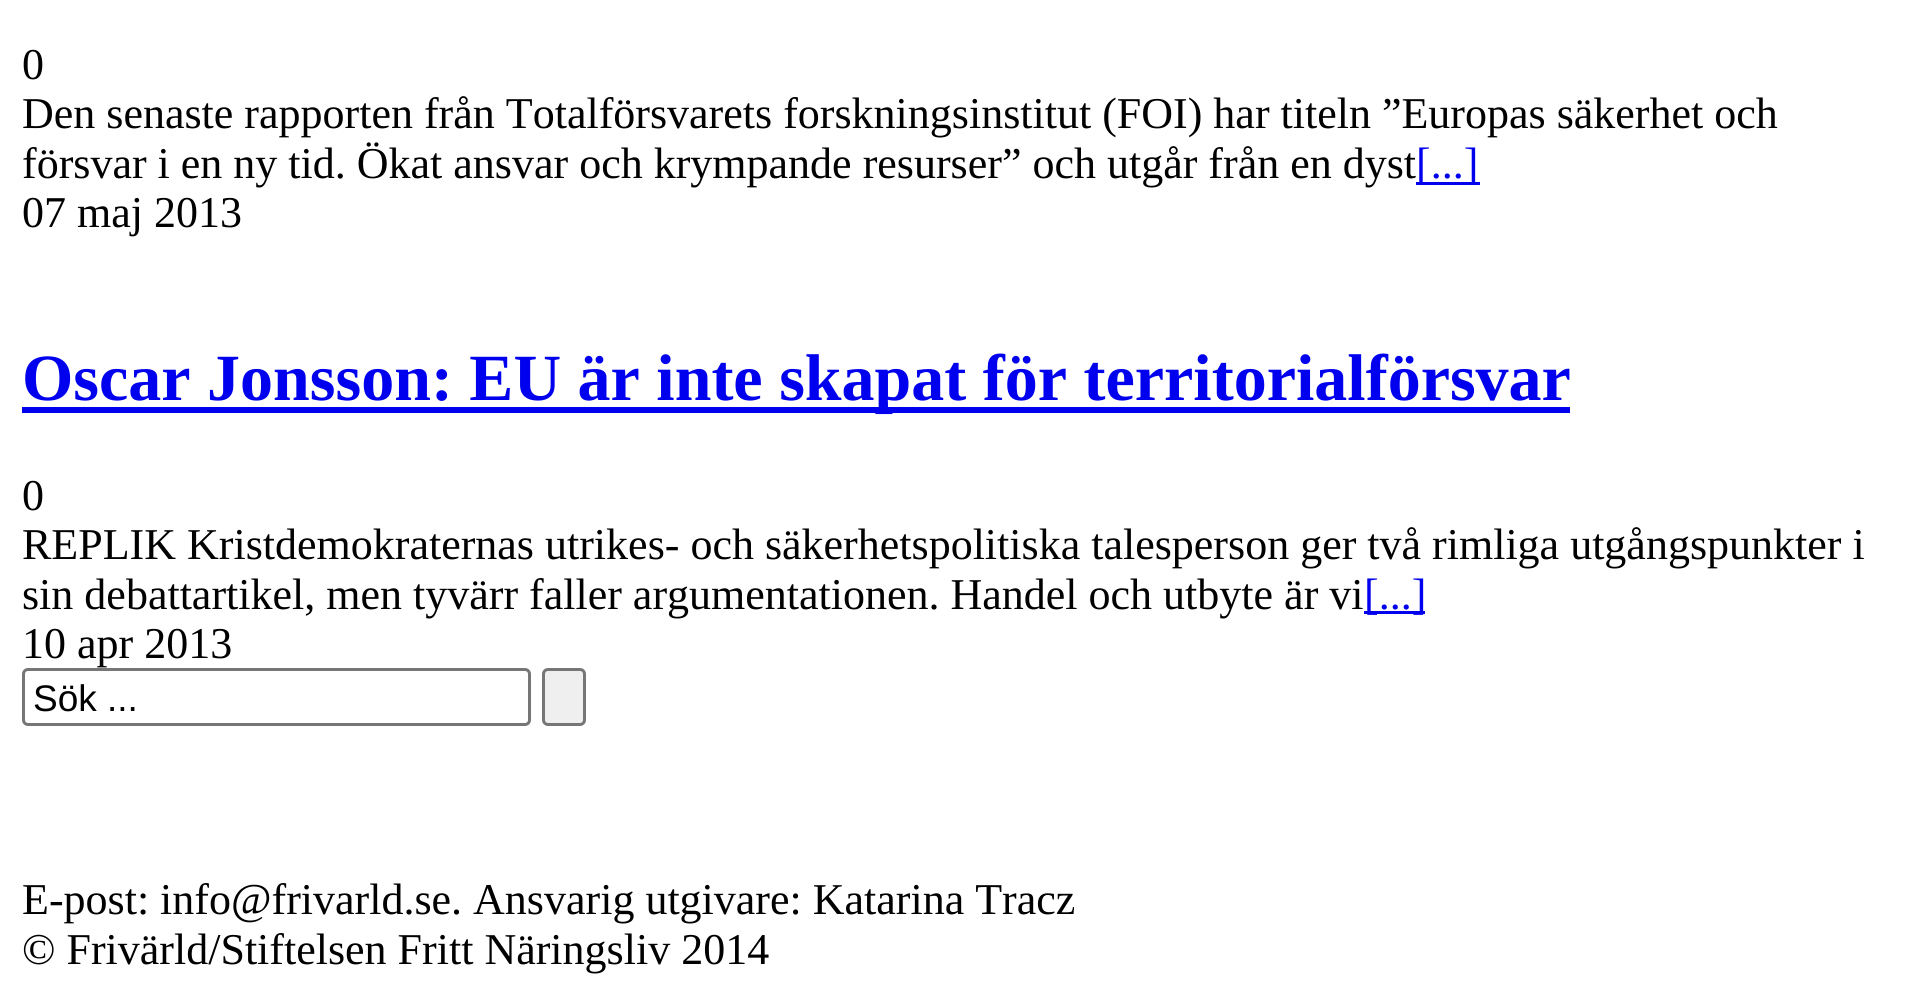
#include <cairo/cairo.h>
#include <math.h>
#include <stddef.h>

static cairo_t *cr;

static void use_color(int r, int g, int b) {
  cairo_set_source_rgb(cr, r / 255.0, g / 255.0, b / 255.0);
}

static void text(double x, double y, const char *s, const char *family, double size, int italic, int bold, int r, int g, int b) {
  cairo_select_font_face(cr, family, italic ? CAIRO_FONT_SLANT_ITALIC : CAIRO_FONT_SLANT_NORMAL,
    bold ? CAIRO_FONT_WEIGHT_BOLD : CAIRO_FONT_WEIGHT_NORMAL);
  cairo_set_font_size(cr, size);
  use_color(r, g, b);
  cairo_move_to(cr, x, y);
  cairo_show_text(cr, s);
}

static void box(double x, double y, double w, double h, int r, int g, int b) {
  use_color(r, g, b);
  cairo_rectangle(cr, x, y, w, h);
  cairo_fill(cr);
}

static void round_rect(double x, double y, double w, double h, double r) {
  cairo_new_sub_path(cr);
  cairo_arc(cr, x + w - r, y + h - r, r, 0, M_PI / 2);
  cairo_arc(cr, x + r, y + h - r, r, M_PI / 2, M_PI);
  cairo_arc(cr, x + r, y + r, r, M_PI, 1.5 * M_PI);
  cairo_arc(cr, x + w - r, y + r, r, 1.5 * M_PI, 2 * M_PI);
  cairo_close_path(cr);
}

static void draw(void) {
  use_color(255, 255, 255);
  cairo_paint(cr);
  box(1416, 182, 64, 3, 0, 0, 238);
  box(22, 407, 1548, 6, 0, 0, 238);
  box(1364, 611, 61, 3, 0, 0, 238);
  round_rect(23.5, 669.5, 506, 55, 4.5);
  use_color(118, 118, 118);
  cairo_set_line_width(cr, 3);
  cairo_stroke(cr);
  use_color(239, 239, 239);
  round_rect(543.5, 669.5, 41, 55, 4.5);
  cairo_fill_preserve(cr);
  use_color(118, 118, 118);
  cairo_stroke(cr);
  text(22, 79, "0", "Liberation Serif", 44, 0, 0, 0, 0, 0);
  text(22, 128, "Den senaste rapporten från Totalförsvarets forskningsinstitut (FOI) har titeln ”Europas säkerhet och", "Liberation Serif", 44, 0, 0, 0, 0, 0);
  text(22, 178, "försvar i en ny tid. Ökat ansvar och krympande resurser” och utgår från en dyst", "Liberation Serif", 44, 0, 0, 0, 0, 0);
  text(1416, 178, "[...]", "Liberation Serif", 44, 0, 0, 0, 0, 238);
  text(22, 227, "07 maj 2013", "Liberation Serif", 44, 0, 0, 0, 0, 0);
  text(22, 400, "Oscar Jonsson: EU är inte skapat för territorialförsvar", "Liberation Serif", 66, 0, 1, 0, 0, 238);
  text(22, 510, "0", "Liberation Serif", 44, 0, 0, 0, 0, 0);
  text(22, 559, "REPLIK Kristdemokraternas utrikes- och säkerhetspolitiska talesperson ger två rimliga utgångspunkter i", "Liberation Serif", 44, 0, 0, 0, 0, 0);
  text(22, 609, "sin debattartikel, men tyvärr faller argumentationen. Handel och utbyte är vi", "Liberation Serif", 44, 0, 0, 0, 0, 0);
  text(1364, 609, "[...]", "Liberation Serif", 44, 0, 0, 0, 0, 238);
  text(22, 658, "10 apr 2013", "Liberation Serif", 44, 0, 0, 0, 0, 0);
  text(33, 711, "Sök ...", "Liberation Sans", 37, 0, 0, 0, 0, 0);
  text(22, 914, "E-post: info@frivarld.se. Ansvarig utgivare: Katarina Tracz", "Liberation Serif", 44, 0, 0, 0, 0, 0);
  text(22, 964, "© Frivärld/Stiftelsen Fritt Näringsliv 2014", "Liberation Serif", 44, 0, 0, 0, 0, 0);
}

int main(void) {
  cairo_surface_t *surface = cairo_image_surface_create(CAIRO_FORMAT_RGB24, 1928, 994);
  cr = cairo_create(surface);
  cairo_font_options_t *options = cairo_font_options_create();
  cairo_font_options_set_hint_metrics(options, CAIRO_HINT_METRICS_OFF);
  cairo_font_options_set_hint_style(options, CAIRO_HINT_STYLE_NONE);
  cairo_set_font_options(cr, options);
  cairo_set_miter_limit(cr, 4);
  draw();
  cairo_surface_write_to_png(surface, "out.png");
  cairo_font_options_destroy(options);
  cairo_destroy(cr);
  cairo_surface_destroy(surface);
  return 0;
}
